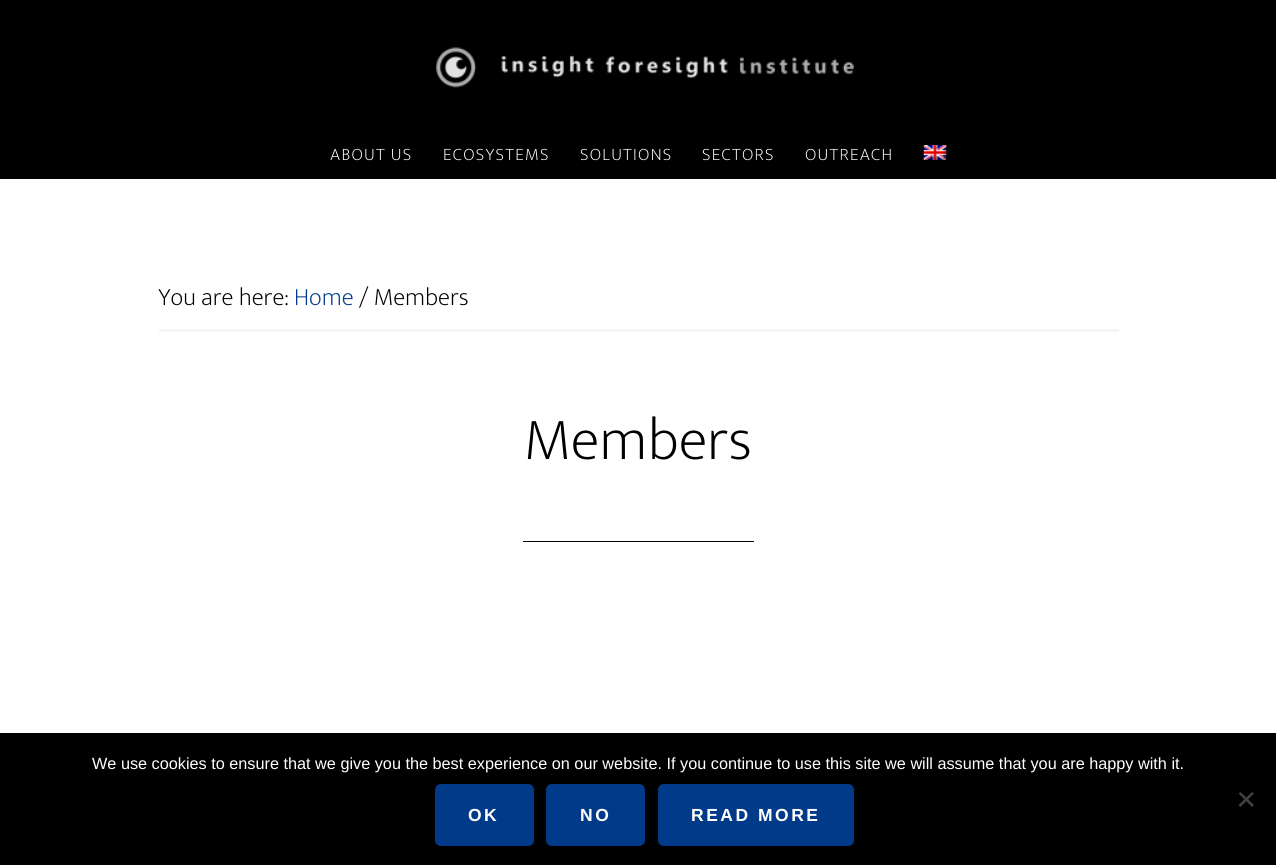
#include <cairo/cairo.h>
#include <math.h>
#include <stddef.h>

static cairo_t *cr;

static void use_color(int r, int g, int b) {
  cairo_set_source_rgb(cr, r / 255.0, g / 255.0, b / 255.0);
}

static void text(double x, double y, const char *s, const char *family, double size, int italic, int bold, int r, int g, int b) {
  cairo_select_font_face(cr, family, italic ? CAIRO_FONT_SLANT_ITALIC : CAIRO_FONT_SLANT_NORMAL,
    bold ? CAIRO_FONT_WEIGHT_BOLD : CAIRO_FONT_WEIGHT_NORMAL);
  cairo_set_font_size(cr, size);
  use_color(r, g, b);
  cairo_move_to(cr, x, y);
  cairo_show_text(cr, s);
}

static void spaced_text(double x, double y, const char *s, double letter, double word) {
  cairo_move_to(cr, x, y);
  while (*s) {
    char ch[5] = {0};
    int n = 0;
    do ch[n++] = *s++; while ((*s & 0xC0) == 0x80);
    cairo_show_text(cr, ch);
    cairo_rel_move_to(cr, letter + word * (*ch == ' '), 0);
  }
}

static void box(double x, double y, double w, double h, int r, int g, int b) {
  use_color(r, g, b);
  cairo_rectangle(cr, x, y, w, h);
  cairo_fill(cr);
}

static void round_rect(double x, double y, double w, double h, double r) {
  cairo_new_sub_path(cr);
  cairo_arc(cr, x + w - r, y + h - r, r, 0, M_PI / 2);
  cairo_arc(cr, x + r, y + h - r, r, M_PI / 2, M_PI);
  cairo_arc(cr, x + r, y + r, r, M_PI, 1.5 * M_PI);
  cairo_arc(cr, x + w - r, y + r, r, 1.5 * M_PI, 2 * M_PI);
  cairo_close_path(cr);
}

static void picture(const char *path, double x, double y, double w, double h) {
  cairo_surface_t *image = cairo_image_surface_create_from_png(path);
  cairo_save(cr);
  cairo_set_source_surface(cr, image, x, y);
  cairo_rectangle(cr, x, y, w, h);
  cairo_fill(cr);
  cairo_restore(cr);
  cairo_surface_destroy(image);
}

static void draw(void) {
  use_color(255, 255, 255);
  cairo_paint(cr);
  box(0, 0, 1276, 179, 0, 0, 0);
  picture("img_01.png", 436, 47, 418, 41);
  picture("img_02.png", 923, 145, 24, 15);
  box(159, 329, 960, 3, 245, 245, 245);
  box(523, 541, 231, 1, 0, 0, 0);
  box(0, 733, 1276, 132, 0, 0, 0);
  use_color(64, 64, 64);
  cairo_new_path(cr);
  cairo_move_to(cr, 1252, 792);
  cairo_line_to(cr, 1254, 793.5);
  cairo_line_to(cr, 1240.5, 807);
  cairo_line_to(cr, 1238.5, 805);
  cairo_close_path(cr);
  cairo_fill(cr);
  cairo_new_path(cr);
  cairo_move_to(cr, 1238.5, 793.5);
  cairo_line_to(cr, 1240.5, 792);
  cairo_line_to(cr, 1254, 805);
  cairo_line_to(cr, 1252, 807);
  cairo_close_path(cr);
  cairo_fill(cr);
  use_color(1, 58, 137);
  round_rect(436.5, 785.5, 96, 59, 4.5);
  cairo_fill_preserve(cr);
  cairo_set_line_width(cr, 3);
  cairo_stroke(cr);
  round_rect(547.5, 785.5, 96, 59, 4.5);
  cairo_fill_preserve(cr);
  cairo_stroke(cr);
  round_rect(659.5, 785.5, 193, 59, 4.5);
  cairo_fill_preserve(cr);
  cairo_stroke(cr);
  cairo_select_font_face(cr, "Ek Mukta ExtraLight", CAIRO_FONT_SLANT_NORMAL, CAIRO_FONT_WEIGHT_NORMAL);
  cairo_set_font_size(cr, 17.5);
  use_color(255, 255, 255);
  spaced_text(330, 160, "ABOUT US", 1.25, 0);
  spaced_text(443, 160, "ECOSYSTEMS", 1.25, 0);
  spaced_text(580, 160, "SOLUTIONS", 1.25, 0);
  spaced_text(702, 160, "SECTORS", 1.25, 0);
  spaced_text(805, 160, "OUTREACH", 1.25, 0);
  text(158, 305, "You are here:", "Ek Mukta ExtraLight", 25, 0, 0, 0, 0, 0);
  text(294, 305, "Home", "Ek Mukta ExtraLight", 25, 0, 0, 1, 58, 137);
  text(359, 305, "/ Members", "Ek Mukta ExtraLight", 25, 0, 0, 0, 0, 0);
  text(524, 459, "Members", "Ek Mukta ExtraLight", 60, 0, 0, 0, 0, 0);
  text(92, 769, "We use cookies to ensure that we give you the best experience on our website. If you continue to use this site we will assume that you are happy with it.", "Liberation Sans", 16.25, 0, 0, 255, 255, 255);
  cairo_select_font_face(cr, "Liberation Sans", CAIRO_FONT_SLANT_NORMAL, CAIRO_FONT_WEIGHT_BOLD);
  cairo_set_font_size(cr, 17.5);
  spaced_text(468, 821, "OK", 2.5, 0);
  spaced_text(580, 821, "NO", 2.5, 0);
  spaced_text(691, 821, "READ MORE", 2.5, 0);
}

int main(void) {
  cairo_surface_t *surface = cairo_image_surface_create(CAIRO_FORMAT_RGB24, 1276, 865);
  cr = cairo_create(surface);
  cairo_font_options_t *options = cairo_font_options_create();
  cairo_font_options_set_hint_metrics(options, CAIRO_HINT_METRICS_OFF);
  cairo_font_options_set_hint_style(options, CAIRO_HINT_STYLE_NONE);
  cairo_set_font_options(cr, options);
  cairo_set_miter_limit(cr, 4);
  draw();
  cairo_surface_write_to_png(surface, "out.png");
  cairo_font_options_destroy(options);
  cairo_destroy(cr);
  cairo_surface_destroy(surface);
  return 0;
}
